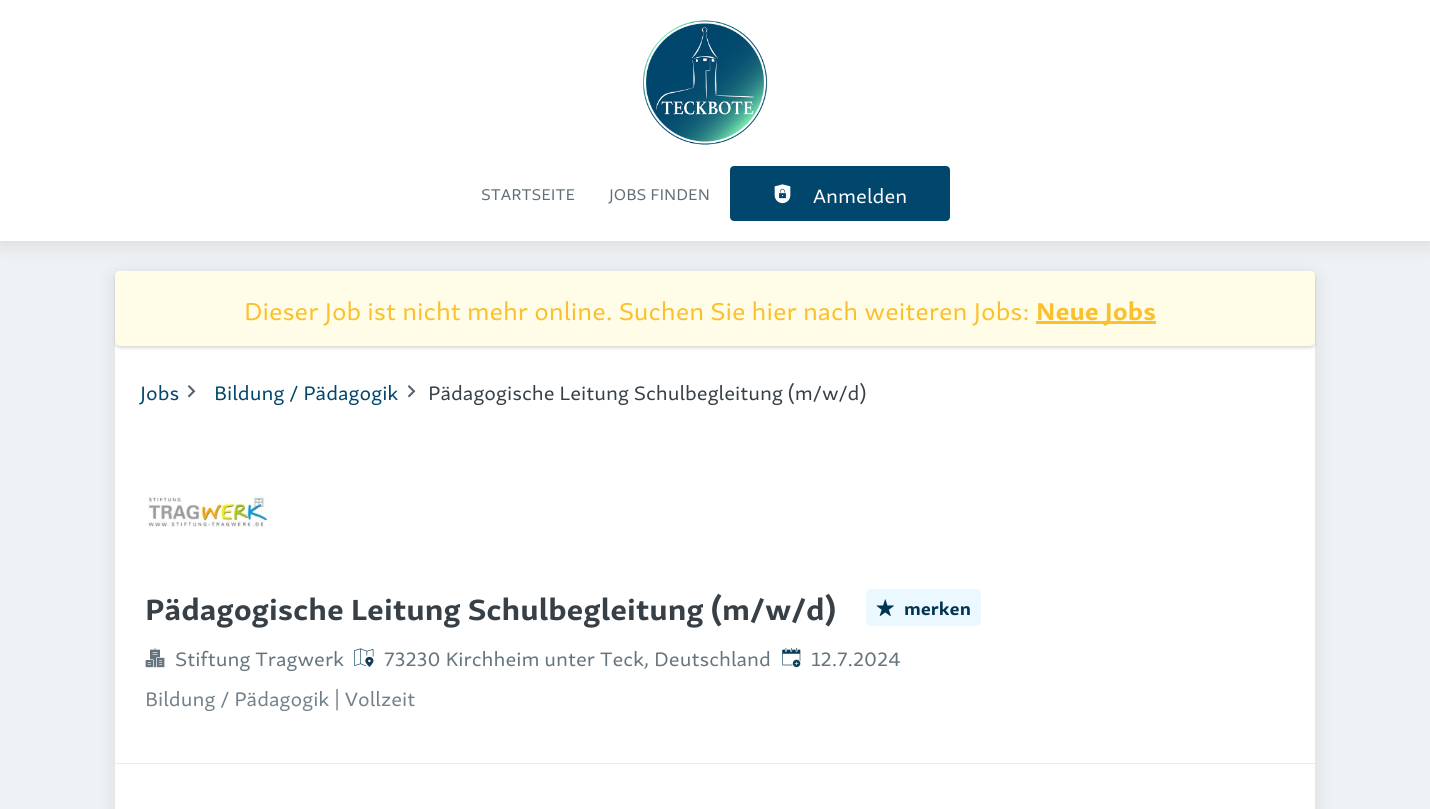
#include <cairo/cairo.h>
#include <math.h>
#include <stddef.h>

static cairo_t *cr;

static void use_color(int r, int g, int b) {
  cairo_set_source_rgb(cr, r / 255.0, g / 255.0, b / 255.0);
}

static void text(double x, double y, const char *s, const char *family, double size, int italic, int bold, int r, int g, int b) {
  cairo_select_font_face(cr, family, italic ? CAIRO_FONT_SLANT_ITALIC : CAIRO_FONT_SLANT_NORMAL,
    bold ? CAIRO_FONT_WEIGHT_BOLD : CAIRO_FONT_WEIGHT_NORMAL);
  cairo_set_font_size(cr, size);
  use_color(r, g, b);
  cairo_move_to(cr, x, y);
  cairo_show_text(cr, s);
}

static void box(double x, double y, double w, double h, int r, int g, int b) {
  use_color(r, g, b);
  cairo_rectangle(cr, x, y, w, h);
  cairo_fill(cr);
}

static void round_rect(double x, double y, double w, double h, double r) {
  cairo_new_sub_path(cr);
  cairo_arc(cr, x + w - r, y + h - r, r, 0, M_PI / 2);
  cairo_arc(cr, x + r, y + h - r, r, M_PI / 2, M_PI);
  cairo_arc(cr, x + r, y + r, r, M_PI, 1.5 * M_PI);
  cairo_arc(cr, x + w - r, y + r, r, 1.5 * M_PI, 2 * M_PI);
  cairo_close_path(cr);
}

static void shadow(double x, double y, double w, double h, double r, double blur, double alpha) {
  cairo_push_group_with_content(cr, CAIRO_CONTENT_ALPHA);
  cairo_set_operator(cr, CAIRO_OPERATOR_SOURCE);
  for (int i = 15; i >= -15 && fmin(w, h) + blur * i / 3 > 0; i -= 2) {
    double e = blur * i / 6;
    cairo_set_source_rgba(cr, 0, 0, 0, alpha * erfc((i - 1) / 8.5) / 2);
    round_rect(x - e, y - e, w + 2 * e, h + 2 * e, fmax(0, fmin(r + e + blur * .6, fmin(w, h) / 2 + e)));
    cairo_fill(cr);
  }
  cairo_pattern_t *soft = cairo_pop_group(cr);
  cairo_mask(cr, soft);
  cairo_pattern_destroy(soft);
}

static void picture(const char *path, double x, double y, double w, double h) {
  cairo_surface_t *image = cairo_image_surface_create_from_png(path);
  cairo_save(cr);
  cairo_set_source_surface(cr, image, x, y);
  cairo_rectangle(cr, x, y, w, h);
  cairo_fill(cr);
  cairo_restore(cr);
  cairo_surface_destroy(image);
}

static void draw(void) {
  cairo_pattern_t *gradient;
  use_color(239, 242, 244);
  cairo_paint(cr);
  use_color(0, 0, 0);
  shadow(0, 4, 1430, 241, 0, 9.5, 0.1);
  box(0, 0, 1430, 241, 255, 255, 255);
  picture("img_01.png", 643, 20, 125, 125);
  use_color(1, 71, 109);
  round_rect(731.5, 167.5, 217, 52, 2.5);
  cairo_fill_preserve(cr);
  cairo_set_line_width(cr, 3);
  cairo_stroke(cr);
  picture("img_02.png", 774, 184, 17, 20);
  use_color(0, 0, 0);
  shadow(115, 275, 1200, 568, 5, 9.5, 0.1);
  use_color(255, 255, 255);
  round_rect(115, 271, 1200, 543, 5);
  cairo_fill(cr);
  use_color(0, 0, 0);
  shadow(115, 273, 1200, 75, 5, 1, 0.06);
  shadow(115, 273, 1200, 75, 5, 2, 0.1);
  use_color(255, 253, 231);
  round_rect(116.5, 272.5, 1197, 72, 3.5);
  cairo_fill_preserve(cr);
  cairo_stroke(cr);
  box(1036, 321, 120, 3, 251, 192, 45);
  picture("img_03.png", 187, 385, 9, 13);
  picture("img_03.png", 407, 385, 9, 13);
  box(115, 763, 1200, 1, 223, 228, 234);
  picture("img_04.png", 148, 496, 120, 31);
  use_color(235, 248, 255);
  round_rect(866, 589, 115, 37, 5);
  cairo_fill(cr);
  picture("img_05.png", 876, 599, 18, 17);
  picture("img_06.png", 145, 648, 20, 20);
  picture("img_07.png", 354, 648, 20, 19);
  picture("img_08.png", 782, 648, 19, 20);
  text(481, 200, "STARTSEITE", "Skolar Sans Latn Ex", 16, 0, 0, 95, 110, 120);
  text(609, 200, "JOBS FINDEN", "Skolar Sans Latn Ex", 16, 0, 0, 95, 110, 120);
  text(813, 203, "Anmelden", "Skolar Sans Latn Ex", 20, 0, 0, 255, 255, 255);
  text(244, 320, "Dieser Job ist nicht mehr online. Suchen Sie hier nach weiteren Jobs:", "Skolar Sans Latn Ex", 25, 0, 0, 251, 192, 45);
  text(1036, 320, "Neue Jobs", "Skolar Sans Latn Ex", 25, 0, 1, 251, 192, 45);
  text(140, 400, "Jobs", "Skolar Sans Latn Ex", 20, 0, 0, 1, 71, 109);
  text(214, 400, "Bildung / Pädagogik", "Skolar Sans Latn Ex", 20, 0, 0, 1, 71, 109);
  text(428, 400, "Pädagogische Leitung Schulbegleitung (m/w/d)", "Skolar Sans Latn Ex", 20, 0, 0, 55, 64, 71);
  text(145, 620, "Pädagogische Leitung Schulbegleitung (m/w/d)", "Skolar Sans Latn Ex", 30, 0, 1, 55, 64, 71);
  text(904, 615, "merken", "Skolar Sans Latn Ex", 18, 0, 1, 0, 53, 82);
  text(175, 666, "Stiftung Tragwerk", "Skolar Sans Latn Ex", 20, 0, 0, 95, 110, 120);
  text(384, 666, "73230 Kirchheim unter Teck, Deutschland", "Skolar Sans Latn Ex", 20, 0, 0, 95, 110, 120);
  text(811, 666, "12.7.2024", "Skolar Sans Latn Ex", 20, 0, 0, 95, 110, 120);
  text(145, 706, "Bildung / Pädagogik | Vollzeit", "Skolar Sans Latn Ex", 20, 0, 0, 95, 110, 120);
  gradient = cairo_pattern_create_linear(715, 640, 715, 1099);
  cairo_pattern_add_color_stop_rgba(gradient, 0, 1, 1, 1, 0);
  cairo_pattern_add_color_stop_rgba(gradient, 1, 1, 1, 1, 1);
  cairo_set_source(cr, gradient);
  cairo_pattern_destroy(gradient);
  cairo_rectangle(cr, 115, 650, 1200, 114);
  cairo_fill(cr);
}

int main(void) {
  cairo_surface_t *surface = cairo_image_surface_create(CAIRO_FORMAT_RGB24, 1430, 809);
  cr = cairo_create(surface);
  cairo_font_options_t *options = cairo_font_options_create();
  cairo_font_options_set_hint_metrics(options, CAIRO_HINT_METRICS_OFF);
  cairo_font_options_set_hint_style(options, CAIRO_HINT_STYLE_NONE);
  cairo_set_font_options(cr, options);
  cairo_set_miter_limit(cr, 4);
  draw();
  cairo_surface_write_to_png(surface, "out.png");
  cairo_font_options_destroy(options);
  cairo_destroy(cr);
  cairo_surface_destroy(surface);
  return 0;
}
